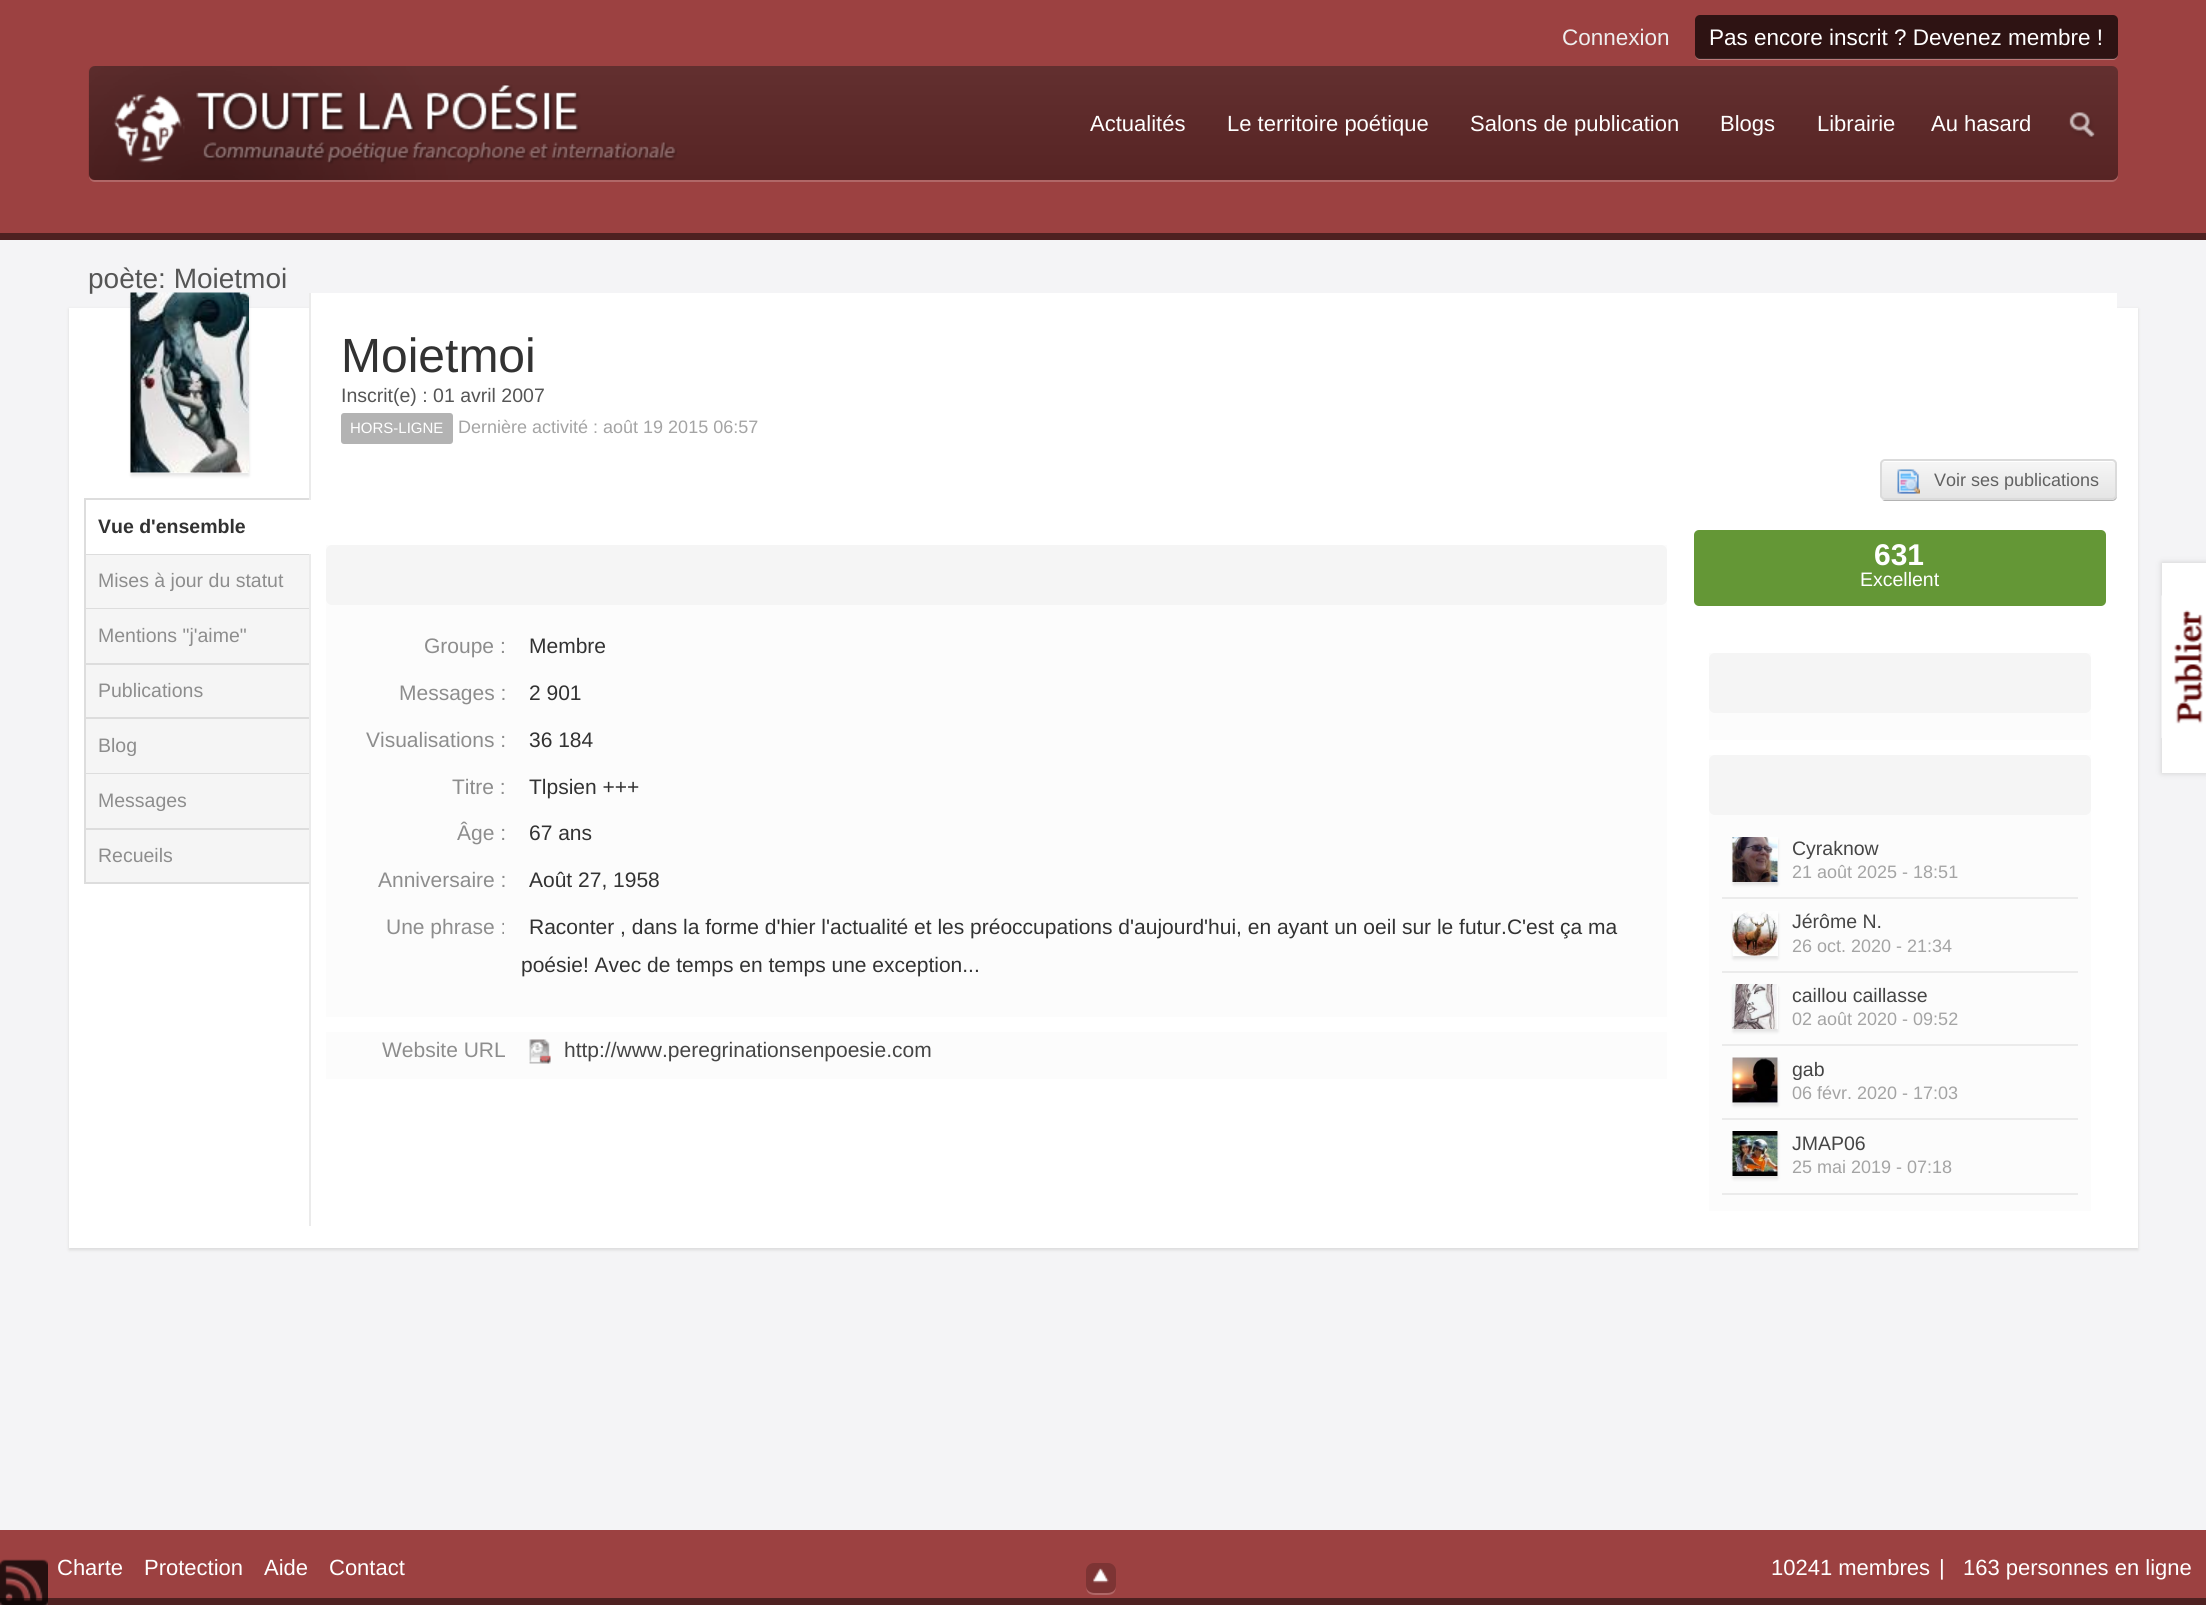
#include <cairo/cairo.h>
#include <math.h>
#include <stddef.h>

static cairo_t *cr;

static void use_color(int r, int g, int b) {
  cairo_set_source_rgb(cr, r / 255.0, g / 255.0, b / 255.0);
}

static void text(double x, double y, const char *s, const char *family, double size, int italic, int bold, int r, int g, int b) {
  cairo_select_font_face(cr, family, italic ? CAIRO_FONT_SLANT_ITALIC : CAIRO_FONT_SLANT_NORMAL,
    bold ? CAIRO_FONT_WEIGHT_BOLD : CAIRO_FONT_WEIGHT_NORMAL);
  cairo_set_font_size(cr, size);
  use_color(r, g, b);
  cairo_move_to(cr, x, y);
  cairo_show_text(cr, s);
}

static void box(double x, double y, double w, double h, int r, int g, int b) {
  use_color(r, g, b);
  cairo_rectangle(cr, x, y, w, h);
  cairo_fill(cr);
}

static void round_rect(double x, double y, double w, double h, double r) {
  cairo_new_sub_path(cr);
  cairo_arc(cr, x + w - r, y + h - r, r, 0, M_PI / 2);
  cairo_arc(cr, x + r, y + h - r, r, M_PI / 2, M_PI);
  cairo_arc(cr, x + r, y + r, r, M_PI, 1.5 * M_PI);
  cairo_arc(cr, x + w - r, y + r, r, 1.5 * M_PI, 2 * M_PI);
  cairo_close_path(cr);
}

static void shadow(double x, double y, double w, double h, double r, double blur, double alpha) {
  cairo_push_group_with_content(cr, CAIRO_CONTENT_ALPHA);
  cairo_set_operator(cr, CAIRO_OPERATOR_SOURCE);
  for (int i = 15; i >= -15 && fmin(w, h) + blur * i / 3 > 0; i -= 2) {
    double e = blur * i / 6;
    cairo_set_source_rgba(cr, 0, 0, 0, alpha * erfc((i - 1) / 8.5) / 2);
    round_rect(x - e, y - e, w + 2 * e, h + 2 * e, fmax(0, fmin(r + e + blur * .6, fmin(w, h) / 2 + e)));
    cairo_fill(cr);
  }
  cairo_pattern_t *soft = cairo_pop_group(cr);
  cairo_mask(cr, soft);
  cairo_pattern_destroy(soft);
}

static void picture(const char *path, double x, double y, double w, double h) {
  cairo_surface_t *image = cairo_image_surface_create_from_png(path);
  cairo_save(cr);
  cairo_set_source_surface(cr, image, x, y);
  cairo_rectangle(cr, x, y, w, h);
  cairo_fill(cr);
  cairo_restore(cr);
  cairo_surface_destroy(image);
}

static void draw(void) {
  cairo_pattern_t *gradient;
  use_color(244, 244, 246);
  cairo_paint(cr);
  box(0, 0, 2206, 233, 156, 65, 65);
  box(0, 233, 2206, 7, 78, 33, 33);
  use_color(186, 122, 122);
  cairo_new_path(cr);
  cairo_move_to(cr, 1695, 54);
  cairo_curve_to(cr, 1695, 57, 1697, 60, 1700, 60);
  cairo_line_to(cr, 2113, 60);
  cairo_curve_to(cr, 2116, 60, 2118, 57, 2118, 54);
  cairo_curve_to(cr, 2118, 56, 2116, 58, 2114, 58);
  cairo_line_to(cr, 1700, 58);
  cairo_curve_to(cr, 1697, 58, 1695, 56, 1695, 54);
  cairo_close_path(cr);
  cairo_fill(cr);
  cairo_set_source_rgba(cr, 0, 0, 0, 0.7);
  round_rect(1695, 15, 423, 44, 5);
  cairo_fill(cr);
  use_color(176, 103, 103);
  cairo_new_path(cr);
  cairo_move_to(cr, 89, 176);
  cairo_curve_to(cr, 89, 180, 92, 182, 95, 182);
  cairo_line_to(cr, 2112, 182);
  cairo_curve_to(cr, 2115, 182, 2118, 179, 2118, 176);
  cairo_line_to(cr, 2118, 174);
  cairo_curve_to(cr, 2118, 177, 2115, 180, 2112, 180);
  cairo_line_to(cr, 94, 180);
  cairo_curve_to(cr, 92, 180, 90, 179, 89, 176);
  cairo_close_path(cr);
  cairo_fill(cr);
  gradient = cairo_pattern_create_linear(1103, 66, 1103, 180);
  cairo_pattern_add_color_stop_rgba(gradient, 0, 0.102, 0.102, 0.102, 0.44);
  cairo_pattern_add_color_stop_rgba(gradient, 1, 0, 0, 0, 0.44);
  cairo_set_source(cr, gradient);
  cairo_pattern_destroy(gradient);
  round_rect(89, 66, 2029, 114, 6);
  cairo_fill(cr);
  picture("img_01.png", 88, 66, 589, 114);
  picture("img_02.png", 2069, 112, 26, 27);
  use_color(219, 219, 219);
  shadow(69, 309, 2069, 941, 0, 1.5, 1);
  box(69, 308, 2069, 940, 255, 255, 255);
  use_color(0, 0, 0);
  shadow(131, 296, 118, 180, 0, 1.5, 0.1);
  box(131, 472, 118, 1, 255, 255, 255);
  box(84, 498, 225, 2, 221, 221, 221);
  box(84, 498, 2, 386, 221, 221, 221);
  box(86, 554, 223, 1, 221, 221, 221);
  box(309, 293, 2, 933, 235, 235, 235);
  box(309, 500, 2, 54, 255, 255, 255);
  box(86, 555, 223, 53, 245, 245, 245);
  box(86, 608, 223, 1, 221, 221, 221);
  box(86, 609, 223, 54, 245, 245, 245);
  box(86, 663, 223, 2, 221, 221, 221);
  box(86, 665, 223, 52, 245, 245, 245);
  box(86, 717, 223, 2, 221, 221, 221);
  box(86, 719, 223, 54, 245, 245, 245);
  box(86, 773, 223, 1, 221, 221, 221);
  box(86, 774, 223, 54, 245, 245, 245);
  box(86, 828, 223, 2, 221, 221, 221);
  box(86, 830, 223, 52, 245, 245, 245);
  box(86, 882, 223, 2, 221, 221, 221);
  box(311, 293, 1806, 15, 255, 255, 255);
  use_color(179, 179, 179);
  round_rect(341, 413, 112, 31, 3);
  cairo_fill(cr);
  cairo_new_path(cr);
  cairo_move_to(cr, 1880, 497);
  cairo_curve_to(cr, 1881, 499, 1883, 501, 1885, 501);
  cairo_line_to(cr, 2112, 501);
  cairo_curve_to(cr, 2115, 501, 2117, 499, 2117, 496);
  cairo_line_to(cr, 2117, 466);
  cairo_line_to(cr, 2116, 464);
  cairo_line_to(cr, 2116, 495);
  cairo_curve_to(cr, 2116, 497, 2114, 500, 2112, 500);
  cairo_line_to(cr, 1884, 500);
  cairo_curve_to(cr, 1882, 500, 1881, 499, 1880, 497);
  cairo_close_path(cr);
  cairo_fill(cr);
  cairo_save(cr);
  round_rect(1880, 459, 237, 41, 5);
  cairo_clip(cr);
  gradient = cairo_pattern_create_linear(1881, 461, 1881, 498);
  cairo_pattern_add_color_stop_rgba(gradient, 0, 0.965, 0.965, 0.965, 1);
  cairo_pattern_add_color_stop_rgba(gradient, 1, 0.898, 0.898, 0.898, 1);
  cairo_set_source(cr, gradient);
  cairo_pattern_destroy(gradient);
  cairo_rectangle(cr, 1880, 461, 237, 37);
  cairo_fill(cr);
  cairo_restore(cr);
  use_color(255, 255, 255);
  cairo_new_path(cr);
  cairo_move_to(cr, 1884, 462);
  cairo_line_to(cr, 2112, 462);
  cairo_curve_to(cr, 2114, 462, 2115, 463, 2115, 465);
  cairo_curve_to(cr, 2115, 463, 2114, 461, 2112, 461);
  cairo_line_to(cr, 1884, 461);
  cairo_curve_to(cr, 1882, 461, 1881, 463, 1881, 465);
  cairo_curve_to(cr, 1881, 463, 1882, 462, 1884, 462);
  cairo_close_path(cr);
  cairo_fill(cr);
  round_rect(1881, 460, 235, 39, 4);
  use_color(219, 219, 219);
  cairo_stroke(cr);
  picture("img_04.png", 1897, 469, 23, 25);
  box(326, 545, 1341, 472, 252, 252, 252);
  use_color(245, 245, 245);
  round_rect(326, 545, 1341, 60, 6);
  cairo_fill(cr);
  box(326, 1032, 1341, 47, 252, 252, 252);
  picture("img_05.png", 529, 1039, 22, 25);
  use_color(100, 151, 54);
  round_rect(1694, 530, 412, 76, 5);
  cairo_fill(cr);
  box(1709, 653, 382, 87, 252, 252, 252);
  use_color(245, 245, 245);
  round_rect(1709, 653, 382, 60, 6);
  cairo_fill(cr);
  box(1709, 755, 382, 456, 252, 252, 252);
  use_color(245, 245, 245);
  round_rect(1709, 755, 382, 60, 6);
  cairo_fill(cr);
  box(1722, 897, 356, 2, 235, 235, 235);
  use_color(0, 0, 0);
  shadow(1733, 840, 45, 45, 0, 1.5, 0.1);
  box(1777, 837, 1, 45, 255, 255, 255);
  picture("img_06.png", 1732, 837, 46, 45);
  box(1722, 971, 356, 2, 235, 235, 235);
  use_color(0, 0, 0);
  shadow(1733, 914, 45, 45, 0, 1.5, 0.1);
  box(1733, 911, 45, 45, 255, 255, 255);
  picture("img_07.png", 1732, 911, 46, 45);
  box(1722, 1044, 356, 2, 235, 235, 235);
  use_color(0, 0, 0);
  shadow(1733, 987, 45, 45, 0, 1.5, 0.1);
  box(1777, 984, 1, 45, 255, 255, 255);
  picture("img_08.png", 1732, 984, 46, 45);
  box(1722, 1118, 356, 2, 235, 235, 235);
  use_color(0, 0, 0);
  shadow(1733, 1061, 45, 45, 0, 1.5, 0.1);
  box(1733, 1058, 45, 45, 255, 255, 255);
  picture("img_09.png", 1732, 1057, 46, 46);
  box(1722, 1193, 356, 2, 235, 235, 235);
  use_color(0, 0, 0);
  shadow(1733, 1134, 45, 45, 0, 1.5, 0.1);
  box(1777, 1131, 1, 45, 255, 255, 255);
  picture("img_10.png", 1732, 1131, 46, 45);
  use_color(204, 204, 204);
  shadow(2162, 563, 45, 210, 0, 3, 1);
  box(2162, 563, 44, 210, 255, 255, 255);
  picture("img_11.png", 2161, 595, 42, 143);
  box(0, 1530, 2206, 68, 156, 65, 65);
  box(0, 1598, 2206, 7, 78, 33, 33);
  picture("img_12.png", 0, 1559, 48, 46);
  use_color(176, 103, 103);
  cairo_new_path(cr);
  cairo_move_to(cr, 1086, 1585.5);
  cairo_curve_to(cr, 1086, 1596, 1093, 1595, 1101, 1595);
  cairo_curve_to(cr, 1109, 1595, 1116, 1596, 1116, 1585.5);
  cairo_curve_to(cr, 1116, 1594, 1107, 1593, 1101, 1593);
  cairo_curve_to(cr, 1095, 1593, 1086, 1594, 1086, 1585.5);
  cairo_close_path(cr);
  cairo_fill(cr);
  cairo_set_source_rgba(cr, 0, 0, 0, 0.2);
  round_rect(1086, 1563, 30, 30, 8);
  cairo_fill(cr);
  picture("img_13.png", 1093, 1568, 16, 15);
  text(1562, 45, "Connexion", "Liberation Sans", 22.5, 0, 0, 238, 238, 238);
  text(1709, 45, "Pas encore inscrit ? Devenez membre !", "Liberation Sans", 22.5, 0, 0, 255, 255, 255);
  text(1090, 131, "Actualités", "Liberation Sans", 22, 0, 0, 255, 255, 255);
  text(1227, 131, "Le territoire poétique", "Liberation Sans", 22, 0, 0, 255, 255, 255);
  text(1470, 131, "Salons de publication", "Liberation Sans", 22, 0, 0, 255, 255, 255);
  text(1720, 131, "Blogs", "Liberation Sans", 22, 0, 0, 255, 255, 255);
  text(1817, 131, "Librairie", "Liberation Sans", 22, 0, 0, 255, 255, 255);
  text(1931, 131, "Au hasard", "Liberation Sans", 22, 0, 0, 255, 255, 255);
  text(88, 288, "poète: Moietmoi", "Liberation Sans", 28, 0, 0, 85, 85, 85);
  picture("img_03.png", 130, 292, 119, 181);
  text(98, 533, "Vue d'ensemble", "Liberation Sans", 19.5, 0, 1, 50, 50, 50);
  text(98, 587, "Mises à jour du statut", "Liberation Sans", 19.5, 0, 0, 141, 141, 141);
  text(98, 642, "Mentions \"j'aime\"", "Liberation Sans", 19.5, 0, 0, 141, 141, 141);
  text(98, 697, "Publications", "Liberation Sans", 19.5, 0, 0, 141, 141, 141);
  text(98, 752, "Blog", "Liberation Sans", 19.5, 0, 0, 141, 141, 141);
  text(98, 807, "Messages", "Liberation Sans", 19.5, 0, 0, 141, 141, 141);
  text(98, 862, "Recueils", "Liberation Sans", 19.5, 0, 0, 141, 141, 141);
  text(341, 372, "Moietmoi", "Liberation Sans", 48, 0, 0, 50, 50, 50);
  text(341, 402, "Inscrit(e) : 01 avril 2007", "Liberation Sans", 19.5, 0, 0, 85, 85, 85);
  text(350, 433, "HORS-LIGNE", "Liberation Sans", 15, 0, 0, 255, 255, 255);
  text(458, 433, "Dernière activité : août 19 2015 06:57", "Liberation Sans", 18, 0, 0, 164, 164, 164);
  text(1934, 486, "Voir ses publications", "Liberation Sans", 18, 0, 0, 97, 97, 97);
  text(424, 653, "Groupe :", "Liberation Sans", 21, 0, 0, 141, 141, 141);
  text(529, 653, "Membre", "Liberation Sans", 21, 0, 0, 50, 50, 50);
  text(399, 700, "Messages :", "Liberation Sans", 21, 0, 0, 141, 141, 141);
  text(529, 700, "2 901", "Liberation Sans", 21, 0, 0, 50, 50, 50);
  text(366, 747, "Visualisations :", "Liberation Sans", 21, 0, 0, 141, 141, 141);
  text(529, 747, "36 184", "Liberation Sans", 21, 0, 0, 50, 50, 50);
  text(452, 794, "Titre :", "Liberation Sans", 21, 0, 0, 141, 141, 141);
  text(529, 794, "Tlpsien +++", "Liberation Sans", 21, 0, 0, 50, 50, 50);
  text(457, 840, "Âge :", "Liberation Sans", 21, 0, 0, 141, 141, 141);
  text(529, 840, "67 ans", "Liberation Sans", 21, 0, 0, 50, 50, 50);
  text(378, 887, "Anniversaire :", "Liberation Sans", 21, 0, 0, 141, 141, 141);
  text(529, 887, "Août 27, 1958", "Liberation Sans", 21, 0, 0, 50, 50, 50);
  text(386, 934, "Une phrase :", "Liberation Sans", 21, 0, 0, 141, 141, 141);
  text(529, 934, "Raconter , dans la forme d'hier l'actualité et les préoccupations d'aujourd'hui, en ayant un oeil sur le futur.C'est ça ma", "Liberation Sans", 21, 0, 0, 50, 50, 50);
  text(521, 972, "poésie! Avec de temps en temps une exception...", "Liberation Sans", 21, 0, 0, 50, 50, 50);
  text(382, 1057, "Website URL", "Liberation Sans", 21, 0, 0, 141, 141, 141);
  text(564, 1057, "http://www.peregrinationsenpoesie.com", "Liberation Sans", 21, 0, 0, 69, 69, 69);
  text(1874, 565, "631", "Liberation Sans", 30, 0, 1, 255, 255, 255);
  text(1860, 586, "Excellent", "Liberation Sans", 19.5, 0, 0, 255, 255, 255);
  text(1792, 855, "Cyraknow", "Liberation Sans", 19.5, 0, 0, 69, 69, 69);
  text(1792, 878, "21 août 2025 - 18:51", "Liberation Sans", 18, 0, 0, 164, 164, 164);
  text(1792, 928, "Jérôme N.", "Liberation Sans", 19.5, 0, 0, 69, 69, 69);
  text(1792, 952, "26 oct. 2020 - 21:34", "Liberation Sans", 18, 0, 0, 164, 164, 164);
  text(1792, 1002, "caillou caillasse", "Liberation Sans", 19.5, 0, 0, 69, 69, 69);
  text(1792, 1025, "02 août 2020 - 09:52", "Liberation Sans", 18, 0, 0, 164, 164, 164);
  text(1792, 1076, "gab", "Liberation Sans", 19.5, 0, 0, 69, 69, 69);
  text(1792, 1099, "06 févr. 2020 - 17:03", "Liberation Sans", 18, 0, 0, 164, 164, 164);
  text(1792, 1150, "JMAP06", "Liberation Sans", 19.5, 0, 0, 69, 69, 69);
  text(1792, 1173, "25 mai 2019 - 07:18", "Liberation Sans", 18, 0, 0, 164, 164, 164);
  text(57, 1575, "Charte", "Liberation Sans", 22, 0, 0, 255, 255, 255);
  text(144, 1575, "Protection", "Liberation Sans", 22, 0, 0, 255, 255, 255);
  text(264, 1575, "Aide", "Liberation Sans", 22, 0, 0, 255, 255, 255);
  text(329, 1575, "Contact", "Liberation Sans", 22, 0, 0, 255, 255, 255);
  text(1771, 1575, "10241 membres", "Liberation Sans", 22, 0, 0, 255, 255, 255);
  text(1939, 1575, "|", "Liberation Sans", 22, 0, 0, 255, 255, 255);
  text(1963, 1575, "163 personnes en ligne", "Liberation Sans", 22, 0, 0, 255, 255, 255);
}

int main(void) {
  cairo_surface_t *surface = cairo_image_surface_create(CAIRO_FORMAT_RGB24, 2206, 1605);
  cr = cairo_create(surface);
  cairo_font_options_t *options = cairo_font_options_create();
  cairo_font_options_set_hint_metrics(options, CAIRO_HINT_METRICS_OFF);
  cairo_font_options_set_hint_style(options, CAIRO_HINT_STYLE_NONE);
  cairo_set_font_options(cr, options);
  cairo_set_miter_limit(cr, 4);
  draw();
  cairo_surface_write_to_png(surface, "out.png");
  cairo_font_options_destroy(options);
  cairo_destroy(cr);
  cairo_surface_destroy(surface);
  return 0;
}
